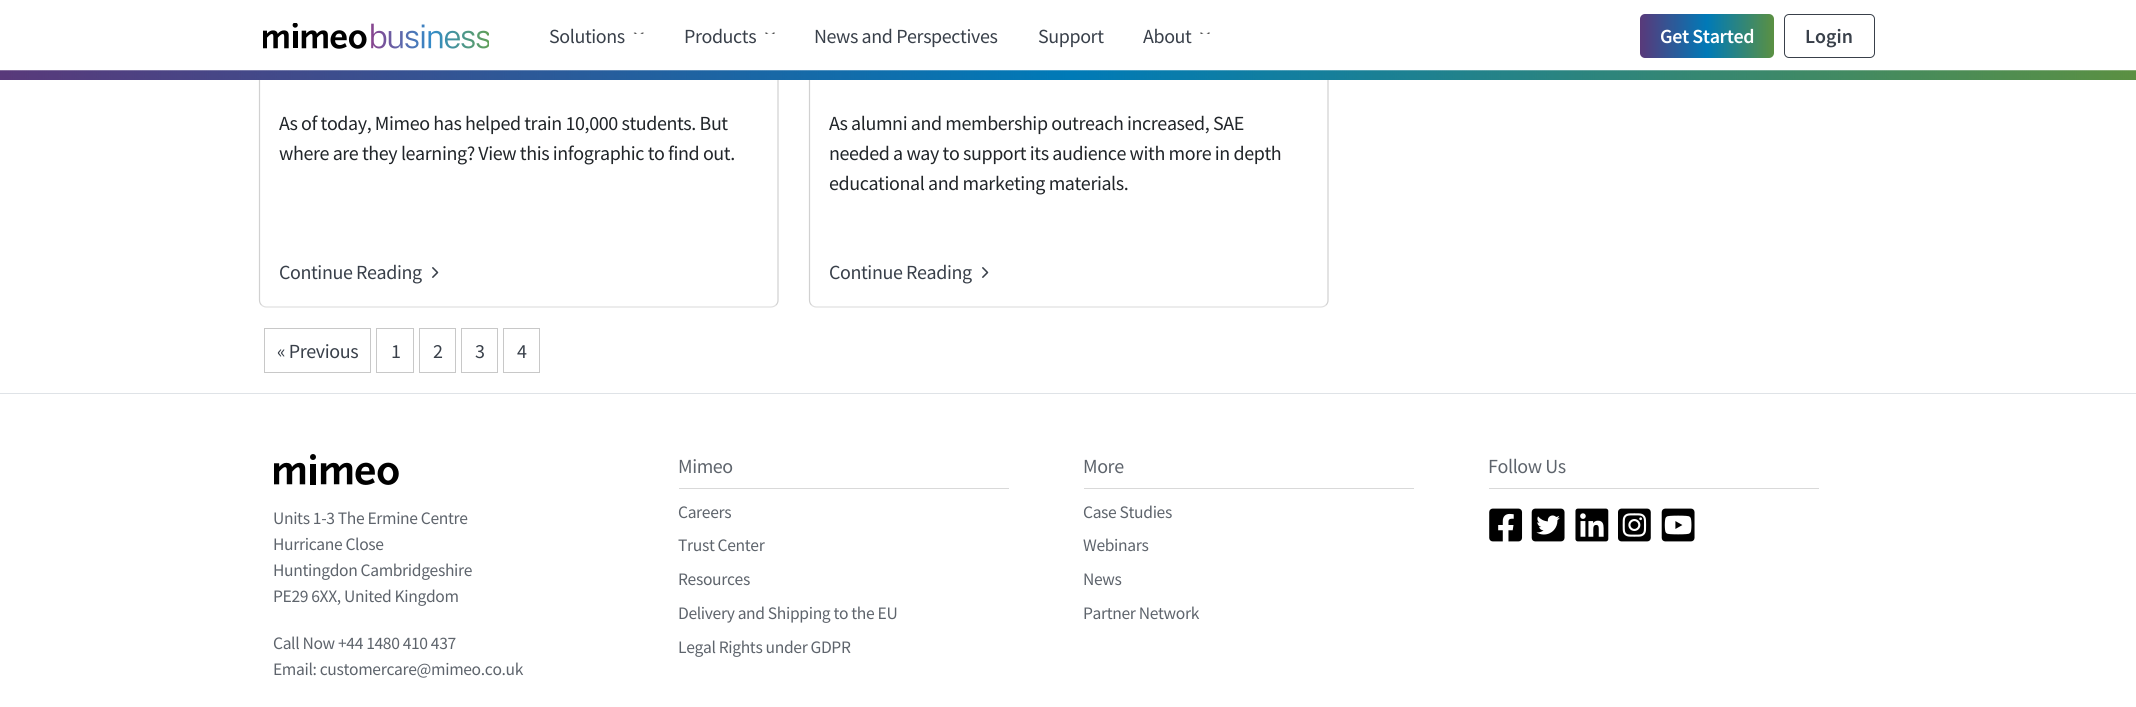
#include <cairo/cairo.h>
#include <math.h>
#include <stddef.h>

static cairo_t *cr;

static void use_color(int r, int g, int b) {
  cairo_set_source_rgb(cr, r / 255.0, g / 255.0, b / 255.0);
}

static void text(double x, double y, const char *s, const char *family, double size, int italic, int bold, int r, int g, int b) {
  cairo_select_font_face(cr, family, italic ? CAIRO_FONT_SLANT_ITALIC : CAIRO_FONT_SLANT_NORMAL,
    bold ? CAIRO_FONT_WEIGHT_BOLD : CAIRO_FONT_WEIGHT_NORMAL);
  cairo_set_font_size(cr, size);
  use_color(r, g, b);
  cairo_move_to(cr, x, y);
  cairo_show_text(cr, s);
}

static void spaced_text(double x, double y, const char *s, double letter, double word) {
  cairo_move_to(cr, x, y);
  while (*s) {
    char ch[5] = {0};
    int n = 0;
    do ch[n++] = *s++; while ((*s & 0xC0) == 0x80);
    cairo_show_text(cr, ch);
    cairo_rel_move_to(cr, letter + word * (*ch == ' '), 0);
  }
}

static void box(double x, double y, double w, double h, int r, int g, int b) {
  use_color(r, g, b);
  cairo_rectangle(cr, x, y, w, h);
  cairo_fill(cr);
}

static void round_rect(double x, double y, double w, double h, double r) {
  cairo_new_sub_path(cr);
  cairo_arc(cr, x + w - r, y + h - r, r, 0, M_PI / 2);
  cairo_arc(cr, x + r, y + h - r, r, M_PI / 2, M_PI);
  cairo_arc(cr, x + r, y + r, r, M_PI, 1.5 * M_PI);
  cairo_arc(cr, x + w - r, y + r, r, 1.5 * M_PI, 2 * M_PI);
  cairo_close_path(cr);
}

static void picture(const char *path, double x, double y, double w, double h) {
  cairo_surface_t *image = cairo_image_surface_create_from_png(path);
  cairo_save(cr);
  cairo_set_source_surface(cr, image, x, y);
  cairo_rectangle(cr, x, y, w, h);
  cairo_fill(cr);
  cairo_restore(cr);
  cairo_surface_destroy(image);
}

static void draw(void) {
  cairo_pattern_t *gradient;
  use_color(255, 255, 255);
  cairo_paint(cr);
  cairo_new_path(cr);
  cairo_move_to(cr, 776, 305);
  cairo_curve_to(cr, 775, 306, 773, 307, 771, 307);
  cairo_line_to(cr, 266, 307);
  cairo_curve_to(cr, 264.5, 307, 262.5, 306, 261.5, 305);
  use_color(223, 223, 223);
  cairo_set_line_width(cr, 1.2);
  cairo_stroke(cr);
  cairo_new_path(cr);
  cairo_move_to(cr, 261.5, 305);
  cairo_curve_to(cr, 260, 303.5, 259.5, 302, 259.5, 300);
  cairo_line_to(cr, 259.5, -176);
  cairo_curve_to(cr, 259.5, -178, 260, -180, 261.5, -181);
  cairo_curve_to(cr, 262.5, -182.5, 264.5, -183, 266, -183);
  cairo_line_to(cr, 771, -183);
  cairo_curve_to(cr, 773, -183, 775, -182.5, 776, -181);
  cairo_curve_to(cr, 777.5, -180, 778, -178, 778, -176);
  cairo_line_to(cr, 778, 300);
  cairo_curve_to(cr, 778, 302, 777.5, 303.5, 776, 305);
  cairo_set_source_rgba(cr, 0, 0, 0, 0.18);
  cairo_stroke(cr);
  cairo_new_path(cr);
  cairo_move_to(cr, 1326, 305);
  cairo_curve_to(cr, 1325, 306, 1323, 307, 1321, 307);
  cairo_line_to(cr, 816, 307);
  cairo_curve_to(cr, 814.5, 307, 812.5, 306, 811.5, 305);
  use_color(223, 223, 223);
  cairo_stroke(cr);
  cairo_new_path(cr);
  cairo_move_to(cr, 811.5, 305);
  cairo_curve_to(cr, 810, 303.5, 809.5, 302, 809.5, 300);
  cairo_line_to(cr, 809.5, -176);
  cairo_curve_to(cr, 809.5, -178, 810, -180, 811.5, -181);
  cairo_curve_to(cr, 812.5, -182.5, 814.5, -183, 816, -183);
  cairo_line_to(cr, 1321, -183);
  cairo_curve_to(cr, 1323, -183, 1325, -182.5, 1326, -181);
  cairo_curve_to(cr, 1327.5, -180, 1328, -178, 1328, -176);
  cairo_line_to(cr, 1328, 300);
  cairo_curve_to(cr, 1328, 302, 1327.5, 303.5, 1326, 305);
  cairo_set_source_rgba(cr, 0, 0, 0, 0.18);
  cairo_stroke(cr);
  box(258, 0, 1071, 71, 255, 255, 255);
  picture("img_01.png", 0, 70, 2136, 10);
  picture("img_02.png", 263, 23, 226, 26);
  picture("img_03.png", 633, 32, 11, 2);
  picture("img_04.png", 765, 32, 10, 2);
  picture("img_04.png", 1200, 32, 10, 2);
  gradient = cairo_pattern_create_linear(1640, 36, 1774, 36);
  cairo_pattern_add_color_stop_rgba(gradient, 0, 0.349, 0.224, 0.478, 1);
  cairo_pattern_add_color_stop_rgba(gradient, 0.5, 0, 0.478, 0.718, 1);
  cairo_pattern_add_color_stop_rgba(gradient, 1, 0.357, 0.565, 0.259, 1);
  cairo_set_source(cr, gradient);
  cairo_pattern_destroy(gradient);
  round_rect(1640, 14, 134, 44, 5);
  cairo_fill(cr);
  round_rect(1784.5, 14.5, 90, 43, 4.5);
  use_color(57, 64, 74);
  cairo_set_line_width(cr, 1);
  cairo_stroke(cr);
  picture("img_05.png", 432, 267, 7, 11);
  picture("img_05.png", 982, 267, 7, 11);
  cairo_rectangle(cr, 264.5, 328.5, 106, 44);
  use_color(200, 200, 200);
  cairo_stroke(cr);
  cairo_rectangle(cr, 376.5, 328.5, 37, 44);
  cairo_stroke(cr);
  cairo_rectangle(cr, 419.5, 328.5, 36, 44);
  cairo_stroke(cr);
  cairo_rectangle(cr, 461.5, 328.5, 36, 44);
  cairo_stroke(cr);
  cairo_rectangle(cr, 503.5, 328.5, 36, 44);
  cairo_stroke(cr);
  box(0, 393, 2136, 1, 223, 227, 231);
  picture("img_06.png", 274, 454, 125, 31);
  box(679, 488, 330, 1, 217, 217, 217);
  box(1084, 488, 330, 1, 217, 217, 217);
  box(1489, 488, 330, 1, 217, 217, 217);
  picture("img_07.png", 1489, 508, 34, 34);
  picture("img_08.png", 1531, 508, 34, 34);
  picture("img_09.png", 1575, 508, 34, 34);
  picture("img_10.png", 1618, 508, 33, 34);
  picture("img_11.png", 1661, 508, 34, 34);
  cairo_select_font_face(cr, "Source Sans Pro", CAIRO_FONT_SLANT_NORMAL, CAIRO_FONT_WEIGHT_NORMAL);
  cairo_set_font_size(cr, 20);
  use_color(57, 64, 74);
  spaced_text(549, 43, "Solutions", -0.4, 0);
  spaced_text(684, 43, "Products", -0.4, 0);
  spaced_text(814, 43, "News and Perspectives", -0.4, 0);
  spaced_text(1038, 43, "Support", -0.4, 0);
  spaced_text(1143, 43, "About", -0.4, 0);
  cairo_select_font_face(cr, "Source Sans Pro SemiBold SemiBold", CAIRO_FONT_SLANT_NORMAL, CAIRO_FONT_WEIGHT_NORMAL);
  use_color(255, 255, 255);
  spaced_text(1660, 43, "Get Started", -0.4, 0);
  text(1805, 43, "Login", "Source Sans Pro SemiBold SemiBold", 20, 0, 0, 57, 64, 74);
  cairo_select_font_face(cr, "Source Sans Pro", CAIRO_FONT_SLANT_NORMAL, CAIRO_FONT_WEIGHT_NORMAL);
  use_color(33, 37, 41);
  spaced_text(279, 130, "As of today, Mimeo has helped train 10,000 students. But", -0.4, 0);
  spaced_text(279, 160, "where are they learning? View this infographic to find out.", -0.4, 0);
  use_color(57, 64, 74);
  spaced_text(279, 279, "Continue Reading", -0.4, 0);
  use_color(33, 37, 41);
  spaced_text(829, 130, "As alumni and membership outreach increased, SAE", -0.4, 0);
  spaced_text(829, 160, "needed a way to support its audience with more in depth", -0.4, 0);
  spaced_text(829, 190, "educational and marketing materials.", -0.4, 0);
  use_color(57, 64, 74);
  spaced_text(829, 279, "Continue Reading", -0.4, 0);
  spaced_text(277, 358, "« Previous", -0.4, 0);
  spaced_text(391, 358, "1", -0.4, 0);
  spaced_text(433, 358, "2", -0.4, 0);
  spaced_text(475, 358, "3", -0.4, 0);
  spaced_text(517, 358, "4", -0.4, 0);
  cairo_set_font_size(cr, 17.5);
  use_color(94, 100, 108);
  spaced_text(273, 524, "Units 1-3 The Ermine Centre", -0.35, 0);
  spaced_text(273, 550, "Hurricane Close", -0.35, 0);
  spaced_text(273, 576, "Huntingdon Cambridgeshire", -0.35, 0);
  spaced_text(273, 602, "PE29 6XX, United Kingdom", -0.35, 0);
  spaced_text(273, 649, "Call Now +44 1480 410 437", -0.35, 0);
  spaced_text(273, 675, "Email: customercare@mimeo.co.uk", -0.35, 0);
  cairo_set_font_size(cr, 20);
  spaced_text(678, 473, "Mimeo", -0.4, 0);
  cairo_set_font_size(cr, 17.5);
  spaced_text(678, 518, "Careers", -0.35, 0);
  spaced_text(678, 551, "Trust Center", -0.35, 0);
  spaced_text(678, 585, "Resources", -0.35, 0);
  spaced_text(678, 619, "Delivery and Shipping to the EU", -0.35, 0);
  spaced_text(678, 653, "Legal Rights under GDPR", -0.35, 0);
  cairo_set_font_size(cr, 20);
  spaced_text(1083, 473, "More", -0.4, 0);
  cairo_set_font_size(cr, 17.5);
  spaced_text(1083, 518, "Case Studies", -0.35, 0);
  spaced_text(1083, 551, "Webinars", -0.35, 0);
  spaced_text(1083, 585, "News", -0.35, 0);
  spaced_text(1083, 619, "Partner Network", -0.35, 0);
  cairo_set_font_size(cr, 20);
  spaced_text(1488, 473, "Follow Us", -0.4, 0);
}

int main(void) {
  cairo_surface_t *surface = cairo_image_surface_create(CAIRO_FORMAT_RGB24, 2136, 707);
  cr = cairo_create(surface);
  cairo_font_options_t *options = cairo_font_options_create();
  cairo_font_options_set_hint_metrics(options, CAIRO_HINT_METRICS_OFF);
  cairo_font_options_set_hint_style(options, CAIRO_HINT_STYLE_NONE);
  cairo_set_font_options(cr, options);
  cairo_set_miter_limit(cr, 4);
  draw();
  cairo_surface_write_to_png(surface, "out.png");
  cairo_font_options_destroy(options);
  cairo_destroy(cr);
  cairo_surface_destroy(surface);
  return 0;
}
